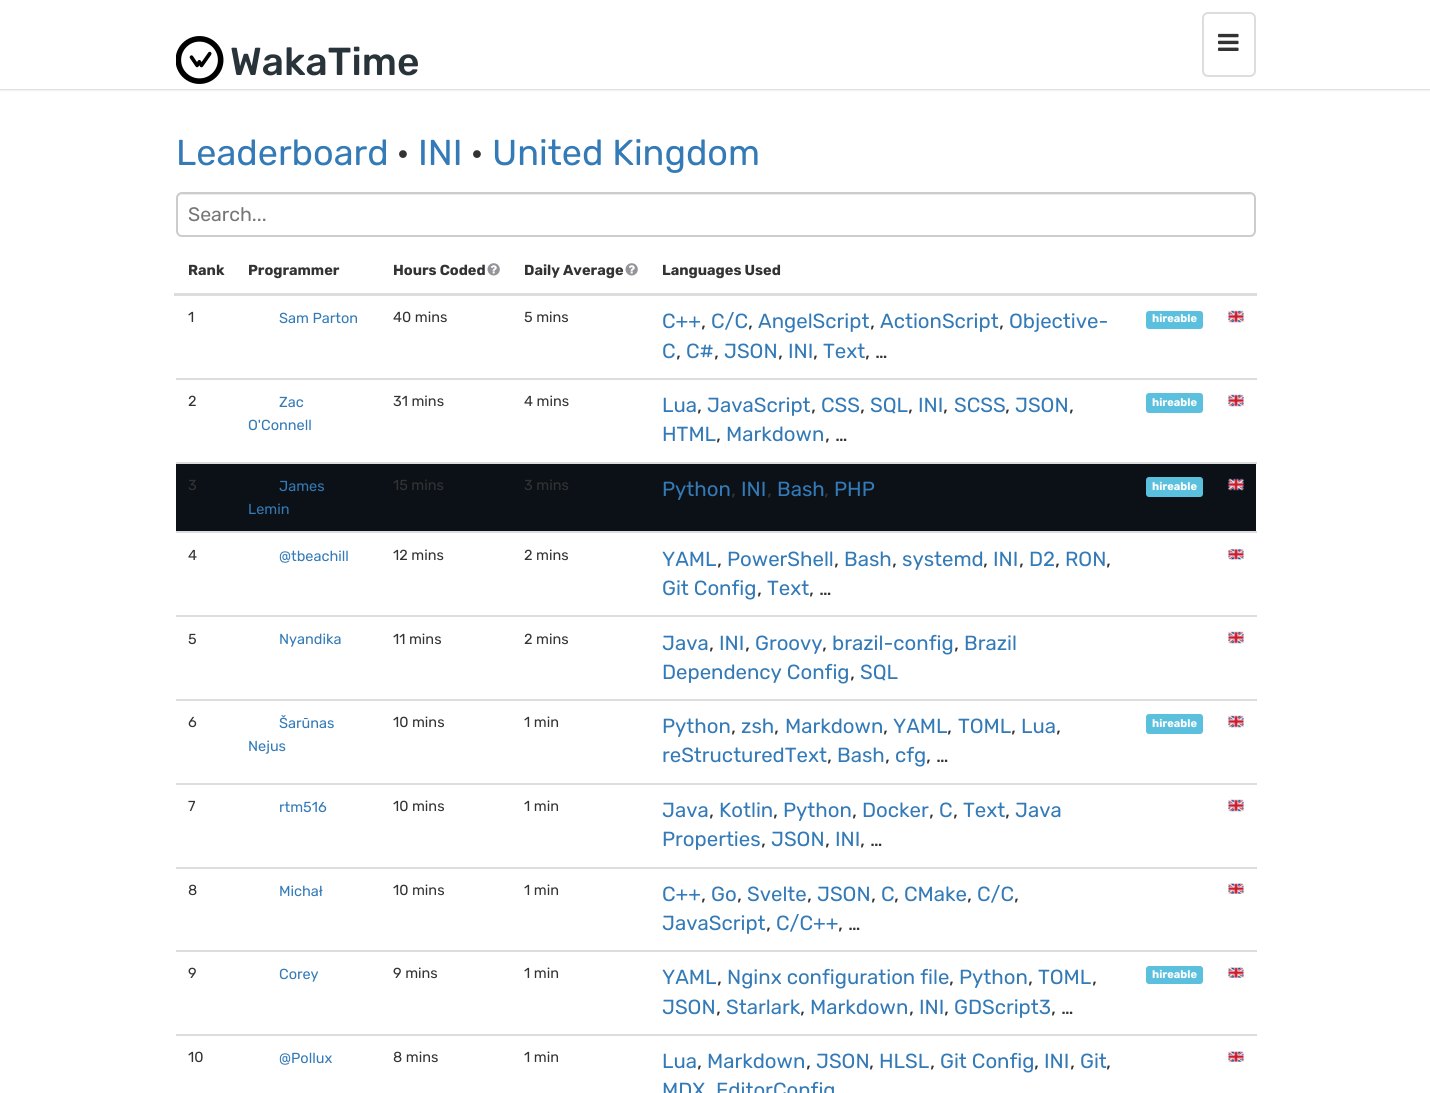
#include <cairo/cairo.h>
#include <math.h>
#include <stddef.h>

static cairo_t *cr;

static void use_color(int r, int g, int b) {
  cairo_set_source_rgb(cr, r / 255.0, g / 255.0, b / 255.0);
}

static void text(double x, double y, const char *s, const char *family, double size, int italic, int bold, int r, int g, int b) {
  cairo_select_font_face(cr, family, italic ? CAIRO_FONT_SLANT_ITALIC : CAIRO_FONT_SLANT_NORMAL,
    bold ? CAIRO_FONT_WEIGHT_BOLD : CAIRO_FONT_WEIGHT_NORMAL);
  cairo_set_font_size(cr, size);
  use_color(r, g, b);
  cairo_move_to(cr, x, y);
  cairo_show_text(cr, s);
}

static void box(double x, double y, double w, double h, int r, int g, int b) {
  use_color(r, g, b);
  cairo_rectangle(cr, x, y, w, h);
  cairo_fill(cr);
}

static void round_rect(double x, double y, double w, double h, double r) {
  cairo_new_sub_path(cr);
  cairo_arc(cr, x + w - r, y + h - r, r, 0, M_PI / 2);
  cairo_arc(cr, x + r, y + h - r, r, M_PI / 2, M_PI);
  cairo_arc(cr, x + r, y + r, r, M_PI, 1.5 * M_PI);
  cairo_arc(cr, x + w - r, y + r, r, 1.5 * M_PI, 2 * M_PI);
  cairo_close_path(cr);
}

static void shadow(double x, double y, double w, double h, double r, double blur, double alpha) {
  cairo_push_group_with_content(cr, CAIRO_CONTENT_ALPHA);
  cairo_set_operator(cr, CAIRO_OPERATOR_SOURCE);
  for (int i = 15; i >= -15 && fmin(w, h) + blur * i / 3 > 0; i -= 2) {
    double e = blur * i / 6;
    cairo_set_source_rgba(cr, 0, 0, 0, alpha * erfc((i - 1) / 8.5) / 2);
    round_rect(x - e, y - e, w + 2 * e, h + 2 * e, fmax(0, fmin(r + e + blur * .6, fmin(w, h) / 2 + e)));
    cairo_fill(cr);
  }
  cairo_pattern_t *soft = cairo_pop_group(cr);
  cairo_mask(cr, soft);
  cairo_pattern_destroy(soft);
}

static void picture(const char *path, double x, double y, double w, double h) {
  cairo_surface_t *image = cairo_image_surface_create_from_png(path);
  cairo_save(cr);
  cairo_set_source_surface(cr, image, x, y);
  cairo_rectangle(cr, x, y, w, h);
  cairo_fill(cr);
  cairo_restore(cr);
  cairo_surface_destroy(image);
}

static void draw(void) {
  use_color(255, 255, 255);
  cairo_paint(cr);
  use_color(0, 0, 0);
  shadow(0, 0, 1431, 89, 0, 1.5, 0.3);
  box(0, 0, 1430, 89, 255, 255, 255);
  picture("img_01.png", 176, 36, 48, 48);
  round_rect(1203, 13, 52, 63, 5);
  use_color(221, 221, 221);
  cairo_stroke(cr);
  picture("img_02.png", 1218, 33, 21, 18);
  use_color(236, 236, 236);
  cairo_new_path(cr);
  cairo_move_to(cr, 182, 195);
  cairo_line_to(cr, 1250, 195);
  cairo_curve_to(cr, 1252, 195, 1254, 197, 1254, 200);
  cairo_curve_to(cr, 1254, 197, 1252, 194, 1249, 194);
  cairo_line_to(cr, 182, 194);
  cairo_curve_to(cr, 179, 194, 177, 197, 177, 200);
  cairo_curve_to(cr, 177, 197, 179, 195, 182, 195);
  cairo_close_path(cr);
  cairo_fill(cr);
  round_rect(177, 193, 1078, 43, 5);
  use_color(204, 204, 204);
  cairo_stroke(cr);
  picture("img_03.png", 487, 263, 13, 13);
  picture("img_03.png", 625, 263, 13, 13);
  box(174, 293, 1083, 3, 221, 221, 221);
  use_color(91, 192, 222);
  round_rect(1146, 311, 57, 18, 3);
  cairo_fill(cr);
  picture("img_04.png", 1228, 310, 16, 13);
  box(176, 378, 1081, 2, 221, 221, 221);
  picture("img_04.png", 1228, 394, 16, 13);
  use_color(91, 192, 222);
  round_rect(1146, 393, 57, 20, 3);
  cairo_fill(cr);
  box(176, 464, 1080, 67, 12, 17, 23);
  box(176, 462, 1081, 2, 221, 221, 221);
  picture("img_05.png", 1228, 478, 16, 13);
  use_color(91, 192, 222);
  round_rect(1146, 477, 57, 20, 3);
  cairo_fill(cr);
  box(176, 531, 1081, 2, 221, 221, 221);
  picture("img_06.png", 1228, 549, 16, 11);
  box(176, 615, 1081, 2, 221, 221, 221);
  picture("img_04.png", 1228, 631, 16, 13);
  box(176, 699, 1081, 2, 221, 221, 221);
  picture("img_04.png", 1228, 715, 16, 13);
  use_color(91, 192, 222);
  round_rect(1146, 714, 57, 20, 3);
  cairo_fill(cr);
  box(176, 783, 1081, 2, 221, 221, 221);
  picture("img_04.png", 1228, 799, 16, 13);
  box(176, 867, 1081, 2, 221, 221, 221);
  picture("img_07.png", 1228, 883, 16, 11);
  box(176, 950, 1081, 2, 221, 221, 221);
  picture("img_07.png", 1228, 967, 16, 11);
  use_color(91, 192, 222);
  round_rect(1146, 966, 57, 18, 3);
  cairo_fill(cr);
  box(176, 1034, 1081, 2, 221, 221, 221);
  picture("img_07.png", 1228, 1051, 16, 11);
  text(230, 75, "WakaTime", "Rubik Medium", 39, 0, 0, 41, 51, 58);
  text(176, 165, "Leaderboard", "Rubik", 36, 0, 0, 51, 122, 183);
  text(397, 165, "·", "Rubik", 36, 0, 0, 51, 51, 51);
  text(418, 165, "INI", "Rubik", 36, 0, 0, 51, 122, 183);
  text(471, 165, "·", "Rubik", 36, 0, 0, 51, 51, 51);
  text(492, 165, "United Kingdom", "Rubik", 36, 0, 0, 51, 122, 183);
  text(188, 221, "Search...", "Rubik", 19.5, 0, 0, 117, 117, 117);
  text(188, 275, "Rank", "Rubik", 14.5, 0, 1, 51, 51, 51);
  text(248, 275, "Programmer", "Rubik", 14.5, 0, 1, 51, 51, 51);
  text(393, 275, "Hours Coded", "Rubik", 14.5, 0, 1, 51, 51, 51);
  text(524, 275, "Daily Average", "Rubik", 14.5, 0, 1, 51, 51, 51);
  text(662, 275, "Languages Used", "Rubik", 14.5, 0, 1, 51, 51, 51);
  text(188, 322, "1", "Rubik", 14.5, 0, 0, 51, 51, 51);
  text(279, 323, "Sam Parton", "Rubik", 14.5, 0, 0, 51, 122, 183);
  text(393, 322, "40 mins", "Rubik", 14.5, 0, 0, 51, 51, 51);
  text(524, 322, "5 mins", "Rubik", 14.5, 0, 0, 51, 51, 51);
  text(662, 328, "C++", "Rubik", 20.4, 0, 0, 51, 122, 183);
  text(701, 328, ",", "Rubik", 20.4, 0, 0, 51, 51, 51);
  text(711, 328, "C/C", "Rubik", 20.4, 0, 0, 51, 122, 183);
  text(748, 328, ",", "Rubik", 20.4, 0, 0, 51, 51, 51);
  text(758, 328, "AngelScript", "Rubik", 20.4, 0, 0, 51, 122, 183);
  text(870, 328, ",", "Rubik", 20.4, 0, 0, 51, 51, 51);
  text(880, 328, "ActionScript", "Rubik", 20.4, 0, 0, 51, 122, 183);
  text(999, 328, ",", "Rubik", 20.4, 0, 0, 51, 51, 51);
  text(1009, 328, "Objective-", "Rubik", 20.4, 0, 0, 51, 122, 183);
  text(662, 358, "C", "Rubik", 20.4, 0, 0, 51, 122, 183);
  text(676, 358, ",", "Rubik", 20.4, 0, 0, 51, 51, 51);
  text(686, 358, "C#", "Rubik", 20.4, 0, 0, 51, 122, 183);
  text(714, 358, ",", "Rubik", 20.4, 0, 0, 51, 51, 51);
  text(724, 358, "JSON", "Rubik", 20.4, 0, 0, 51, 122, 183);
  text(778, 358, ",", "Rubik", 20.4, 0, 0, 51, 51, 51);
  text(788, 358, "INI", "Rubik", 20.4, 0, 0, 51, 122, 183);
  text(813, 358, ",", "Rubik", 20.4, 0, 0, 51, 51, 51);
  text(823, 358, "Text", "Rubik", 20.4, 0, 0, 51, 122, 183);
  text(865, 358, ", …", "Rubik", 20.4, 0, 0, 51, 51, 51);
  text(1152, 322, "hireable", "Rubik", 11, 0, 1, 255, 255, 255);
  text(188, 406, "2", "Rubik", 14.5, 0, 0, 51, 51, 51);
  text(279, 407, "Zac", "Rubik", 14.5, 0, 0, 51, 122, 183);
  text(248, 430, "O'Connell", "Rubik", 14.5, 0, 0, 51, 122, 183);
  text(393, 406, "31 mins", "Rubik", 14.5, 0, 0, 51, 51, 51);
  text(524, 406, "4 mins", "Rubik", 14.5, 0, 0, 51, 51, 51);
  text(662, 412, "Lua", "Rubik", 20.4, 0, 0, 51, 122, 183);
  text(697, 412, ",", "Rubik", 20.4, 0, 0, 51, 51, 51);
  text(707, 412, "JavaScript", "Rubik", 20.4, 0, 0, 51, 122, 183);
  text(811, 412, ",", "Rubik", 20.4, 0, 0, 51, 51, 51);
  text(821, 412, "CSS", "Rubik", 20.4, 0, 0, 51, 122, 183);
  text(860, 412, ",", "Rubik", 20.4, 0, 0, 51, 51, 51);
  text(870, 412, "SQL", "Rubik", 20.4, 0, 0, 51, 122, 183);
  text(908, 412, ",", "Rubik", 20.4, 0, 0, 51, 51, 51);
  text(918, 412, "INI", "Rubik", 20.4, 0, 0, 51, 122, 183);
  text(943, 412, ",", "Rubik", 20.4, 0, 0, 51, 51, 51);
  text(954, 412, "SCSS", "Rubik", 20.4, 0, 0, 51, 122, 183);
  text(1005, 412, ",", "Rubik", 20.4, 0, 0, 51, 51, 51);
  text(1015, 412, "JSON", "Rubik", 20.4, 0, 0, 51, 122, 183);
  text(1069, 412, ",", "Rubik", 20.4, 0, 0, 51, 51, 51);
  text(662, 441, "HTML", "Rubik", 20.4, 0, 0, 51, 122, 183);
  text(716, 441, ",", "Rubik", 20.4, 0, 0, 51, 51, 51);
  text(726, 441, "Markdown", "Rubik", 20.4, 0, 0, 51, 122, 183);
  text(825, 441, ", …", "Rubik", 20.4, 0, 0, 51, 51, 51);
  text(1152, 406, "hireable", "Rubik", 11, 0, 1, 255, 255, 255);
  text(188, 490, "3", "Rubik", 14.5, 0, 0, 51, 51, 51);
  text(279, 491, "James", "Rubik", 14.5, 0, 0, 51, 122, 183);
  text(248, 514, "Lemin", "Rubik", 14.5, 0, 0, 51, 122, 183);
  text(393, 490, "15 mins", "Rubik", 14.5, 0, 0, 51, 51, 51);
  text(524, 490, "3 mins", "Rubik", 14.5, 0, 0, 51, 51, 51);
  text(662, 496, "Python", "Rubik", 20.4, 0, 0, 51, 122, 183);
  text(731, 496, ",", "Rubik", 20.4, 0, 0, 51, 51, 51);
  text(741, 496, "INI", "Rubik", 20.4, 0, 0, 51, 122, 183);
  text(767, 496, ",", "Rubik", 20.4, 0, 0, 51, 51, 51);
  text(777, 496, "Bash", "Rubik", 20.4, 0, 0, 51, 122, 183);
  text(824, 496, ",", "Rubik", 20.4, 0, 0, 51, 51, 51);
  text(834, 496, "PHP", "Rubik", 20.4, 0, 0, 51, 122, 183);
  text(1152, 490, "hireable", "Rubik", 11, 0, 1, 255, 255, 255);
  text(188, 560, "4", "Rubik", 14.5, 0, 0, 51, 51, 51);
  text(279, 561, "@tbeachill", "Rubik", 14.5, 0, 0, 51, 122, 183);
  text(393, 560, "12 mins", "Rubik", 14.5, 0, 0, 51, 51, 51);
  text(524, 560, "2 mins", "Rubik", 14.5, 0, 0, 51, 51, 51);
  text(662, 566, "YAML", "Rubik", 20.4, 0, 0, 51, 122, 183);
  text(717, 566, ",", "Rubik", 20.4, 0, 0, 51, 51, 51);
  text(727, 566, "PowerShell", "Rubik", 20.4, 0, 0, 51, 122, 183);
  text(834, 566, ",", "Rubik", 20.4, 0, 0, 51, 51, 51);
  text(844, 566, "Bash", "Rubik", 20.4, 0, 0, 51, 122, 183);
  text(892, 566, ",", "Rubik", 20.4, 0, 0, 51, 51, 51);
  text(902, 566, "systemd", "Rubik", 20.4, 0, 0, 51, 122, 183);
  text(983, 566, ",", "Rubik", 20.4, 0, 0, 51, 51, 51);
  text(993, 566, "INI", "Rubik", 20.4, 0, 0, 51, 122, 183);
  text(1019, 566, ",", "Rubik", 20.4, 0, 0, 51, 51, 51);
  text(1029, 566, "D2", "Rubik", 20.4, 0, 0, 51, 122, 183);
  text(1055, 566, ",", "Rubik", 20.4, 0, 0, 51, 51, 51);
  text(1065, 566, "RON", "Rubik", 20.4, 0, 0, 51, 122, 183);
  text(1106, 566, ",", "Rubik", 20.4, 0, 0, 51, 51, 51);
  text(662, 595, "Git Config", "Rubik", 20.4, 0, 0, 51, 122, 183);
  text(757, 595, ",", "Rubik", 20.4, 0, 0, 51, 51, 51);
  text(767, 595, "Text", "Rubik", 20.4, 0, 0, 51, 122, 183);
  text(809, 595, ", …", "Rubik", 20.4, 0, 0, 51, 51, 51);
  text(188, 644, "5", "Rubik", 14.5, 0, 0, 51, 51, 51);
  text(279, 644, "Nyandika", "Rubik", 14.5, 0, 0, 51, 122, 183);
  text(393, 644, "11 mins", "Rubik", 14.5, 0, 0, 51, 51, 51);
  text(524, 644, "2 mins", "Rubik", 14.5, 0, 0, 51, 51, 51);
  text(662, 650, "Java", "Rubik", 20.4, 0, 0, 51, 122, 183);
  text(709, 650, ",", "Rubik", 20.4, 0, 0, 51, 51, 51);
  text(719, 650, "INI", "Rubik", 20.4, 0, 0, 51, 122, 183);
  text(745, 650, ",", "Rubik", 20.4, 0, 0, 51, 51, 51);
  text(755, 650, "Groovy", "Rubik", 20.4, 0, 0, 51, 122, 183);
  text(822, 650, ",", "Rubik", 20.4, 0, 0, 51, 51, 51);
  text(832, 650, "brazil-config", "Rubik", 20.4, 0, 0, 51, 122, 183);
  text(954, 650, ",", "Rubik", 20.4, 0, 0, 51, 51, 51);
  text(964, 650, "Brazil", "Rubik", 20.4, 0, 0, 51, 122, 183);
  text(662, 679, "Dependency Config", "Rubik", 20.4, 0, 0, 51, 122, 183);
  text(850, 679, ",", "Rubik", 20.4, 0, 0, 51, 51, 51);
  text(860, 679, "SQL", "Rubik", 20.4, 0, 0, 51, 122, 183);
  text(188, 727, "6", "Rubik", 14.5, 0, 0, 51, 51, 51);
  text(279, 728, "Šarūnas", "Rubik", 14.5, 0, 0, 51, 122, 183);
  text(248, 751, "Nejus", "Rubik", 14.5, 0, 0, 51, 122, 183);
  text(393, 727, "10 mins", "Rubik", 14.5, 0, 0, 51, 51, 51);
  text(524, 727, "1 min", "Rubik", 14.5, 0, 0, 51, 51, 51);
  text(662, 733, "Python", "Rubik", 20.4, 0, 0, 51, 122, 183);
  text(731, 733, ",", "Rubik", 20.4, 0, 0, 51, 51, 51);
  text(741, 733, "zsh", "Rubik", 20.4, 0, 0, 51, 122, 183);
  text(774, 733, ",", "Rubik", 20.4, 0, 0, 51, 51, 51);
  text(785, 733, "Markdown", "Rubik", 20.4, 0, 0, 51, 122, 183);
  text(883, 733, ",", "Rubik", 20.4, 0, 0, 51, 51, 51);
  text(893, 733, "YAML", "Rubik", 20.4, 0, 0, 51, 122, 183);
  text(947, 733, ",", "Rubik", 20.4, 0, 0, 51, 51, 51);
  text(958, 733, "TOML", "Rubik", 20.4, 0, 0, 51, 122, 183);
  text(1011, 733, ",", "Rubik", 20.4, 0, 0, 51, 51, 51);
  text(1021, 733, "Lua", "Rubik", 20.4, 0, 0, 51, 122, 183);
  text(1056, 733, ",", "Rubik", 20.4, 0, 0, 51, 51, 51);
  text(662, 762, "reStructuredText", "Rubik", 20.4, 0, 0, 51, 122, 183);
  text(827, 762, ",", "Rubik", 20.4, 0, 0, 51, 51, 51);
  text(837, 762, "Bash", "Rubik", 20.4, 0, 0, 51, 122, 183);
  text(885, 762, ",", "Rubik", 20.4, 0, 0, 51, 51, 51);
  text(895, 762, "cfg", "Rubik", 20.4, 0, 0, 51, 122, 183);
  text(926, 762, ", …", "Rubik", 20.4, 0, 0, 51, 51, 51);
  text(1152, 727, "hireable", "Rubik", 11, 0, 1, 255, 255, 255);
  text(188, 811, "7", "Rubik", 14.5, 0, 0, 51, 51, 51);
  text(279, 812, "rtm516", "Rubik", 14.5, 0, 0, 51, 122, 183);
  text(393, 811, "10 mins", "Rubik", 14.5, 0, 0, 51, 51, 51);
  text(524, 811, "1 min", "Rubik", 14.5, 0, 0, 51, 51, 51);
  text(662, 817, "Java", "Rubik", 20.4, 0, 0, 51, 122, 183);
  text(709, 817, ",", "Rubik", 20.4, 0, 0, 51, 51, 51);
  text(719, 817, "Kotlin", "Rubik", 20.4, 0, 0, 51, 122, 183);
  text(773, 817, ",", "Rubik", 20.4, 0, 0, 51, 51, 51);
  text(783, 817, "Python", "Rubik", 20.4, 0, 0, 51, 122, 183);
  text(852, 817, ",", "Rubik", 20.4, 0, 0, 51, 51, 51);
  text(862, 817, "Docker", "Rubik", 20.4, 0, 0, 51, 122, 183);
  text(929, 817, ",", "Rubik", 20.4, 0, 0, 51, 51, 51);
  text(939, 817, "C", "Rubik", 20.4, 0, 0, 51, 122, 183);
  text(953, 817, ",", "Rubik", 20.4, 0, 0, 51, 51, 51);
  text(963, 817, "Text", "Rubik", 20.4, 0, 0, 51, 122, 183);
  text(1005, 817, ",", "Rubik", 20.4, 0, 0, 51, 51, 51);
  text(1015, 817, "Java", "Rubik", 20.4, 0, 0, 51, 122, 183);
  text(662, 846, "Properties", "Rubik", 20.4, 0, 0, 51, 122, 183);
  text(761, 846, ",", "Rubik", 20.4, 0, 0, 51, 51, 51);
  text(771, 846, "JSON", "Rubik", 20.4, 0, 0, 51, 122, 183);
  text(825, 846, ",", "Rubik", 20.4, 0, 0, 51, 51, 51);
  text(835, 846, "INI", "Rubik", 20.4, 0, 0, 51, 122, 183);
  text(860, 846, ", …", "Rubik", 20.4, 0, 0, 51, 51, 51);
  text(188, 895, "8", "Rubik", 14.5, 0, 0, 51, 51, 51);
  text(279, 896, "Michał", "Rubik", 14.5, 0, 0, 51, 122, 183);
  text(393, 895, "10 mins", "Rubik", 14.5, 0, 0, 51, 51, 51);
  text(524, 895, "1 min", "Rubik", 14.5, 0, 0, 51, 51, 51);
  text(662, 901, "C++", "Rubik", 20.4, 0, 0, 51, 122, 183);
  text(701, 901, ",", "Rubik", 20.4, 0, 0, 51, 51, 51);
  text(711, 901, "Go", "Rubik", 20.4, 0, 0, 51, 122, 183);
  text(737, 901, ",", "Rubik", 20.4, 0, 0, 51, 51, 51);
  text(747, 901, "Svelte", "Rubik", 20.4, 0, 0, 51, 122, 183);
  text(807, 901, ",", "Rubik", 20.4, 0, 0, 51, 51, 51);
  text(817, 901, "JSON", "Rubik", 20.4, 0, 0, 51, 122, 183);
  text(871, 901, ",", "Rubik", 20.4, 0, 0, 51, 51, 51);
  text(881, 901, "C", "Rubik", 20.4, 0, 0, 51, 122, 183);
  text(894, 901, ",", "Rubik", 20.4, 0, 0, 51, 51, 51);
  text(904, 901, "CMake", "Rubik", 20.4, 0, 0, 51, 122, 183);
  text(967, 901, ",", "Rubik", 20.4, 0, 0, 51, 51, 51);
  text(977, 901, "C/C", "Rubik", 20.4, 0, 0, 51, 122, 183);
  text(1014, 901, ",", "Rubik", 20.4, 0, 0, 51, 51, 51);
  text(662, 930, "JavaScript", "Rubik", 20.4, 0, 0, 51, 122, 183);
  text(766, 930, ",", "Rubik", 20.4, 0, 0, 51, 51, 51);
  text(776, 930, "C/C++", "Rubik", 20.4, 0, 0, 51, 122, 183);
  text(838, 930, ", …", "Rubik", 20.4, 0, 0, 51, 51, 51);
  text(188, 978, "9", "Rubik", 14.5, 0, 0, 51, 51, 51);
  text(279, 979, "Corey", "Rubik", 14.5, 0, 0, 51, 122, 183);
  text(393, 978, "9 mins", "Rubik", 14.5, 0, 0, 51, 51, 51);
  text(524, 978, "1 min", "Rubik", 14.5, 0, 0, 51, 51, 51);
  text(662, 984, "YAML", "Rubik", 20.4, 0, 0, 51, 122, 183);
  text(717, 984, ",", "Rubik", 20.4, 0, 0, 51, 51, 51);
  text(727, 984, "Nginx configuration file", "Rubik", 20.4, 0, 0, 51, 122, 183);
  text(949, 984, ",", "Rubik", 20.4, 0, 0, 51, 51, 51);
  text(959, 984, "Python", "Rubik", 20.4, 0, 0, 51, 122, 183);
  text(1028, 984, ",", "Rubik", 20.4, 0, 0, 51, 51, 51);
  text(1038, 984, "TOML", "Rubik", 20.4, 0, 0, 51, 122, 183);
  text(1092, 984, ",", "Rubik", 20.4, 0, 0, 51, 51, 51);
  text(662, 1014, "JSON", "Rubik", 20.4, 0, 0, 51, 122, 183);
  text(716, 1014, ",", "Rubik", 20.4, 0, 0, 51, 51, 51);
  text(726, 1014, "Starlark", "Rubik", 20.4, 0, 0, 51, 122, 183);
  text(800, 1014, ",", "Rubik", 20.4, 0, 0, 51, 51, 51);
  text(810, 1014, "Markdown", "Rubik", 20.4, 0, 0, 51, 122, 183);
  text(909, 1014, ",", "Rubik", 20.4, 0, 0, 51, 51, 51);
  text(919, 1014, "INI", "Rubik", 20.4, 0, 0, 51, 122, 183);
  text(944, 1014, ",", "Rubik", 20.4, 0, 0, 51, 51, 51);
  text(954, 1014, "GDScript3", "Rubik", 20.4, 0, 0, 51, 122, 183);
  text(1051, 1014, ", …", "Rubik", 20.4, 0, 0, 51, 51, 51);
  text(1152, 978, "hireable", "Rubik", 11, 0, 1, 255, 255, 255);
  text(188, 1062, "10", "Rubik", 14.5, 0, 0, 51, 51, 51);
  text(279, 1063, "@Pollux", "Rubik", 14.5, 0, 0, 51, 122, 183);
  text(393, 1062, "8 mins", "Rubik", 14.5, 0, 0, 51, 51, 51);
  text(524, 1062, "1 min", "Rubik", 14.5, 0, 0, 51, 51, 51);
  text(662, 1068, "Lua", "Rubik", 20.4, 0, 0, 51, 122, 183);
  text(697, 1068, ",", "Rubik", 20.4, 0, 0, 51, 51, 51);
  text(707, 1068, "Markdown", "Rubik", 20.4, 0, 0, 51, 122, 183);
  text(806, 1068, ",", "Rubik", 20.4, 0, 0, 51, 51, 51);
  text(816, 1068, "JSON", "Rubik", 20.4, 0, 0, 51, 122, 183);
  text(869, 1068, ",", "Rubik", 20.4, 0, 0, 51, 51, 51);
  text(879, 1068, "HLSL", "Rubik", 20.4, 0, 0, 51, 122, 183);
  text(930, 1068, ",", "Rubik", 20.4, 0, 0, 51, 51, 51);
  text(940, 1068, "Git Config", "Rubik", 20.4, 0, 0, 51, 122, 183);
  text(1034, 1068, ",", "Rubik", 20.4, 0, 0, 51, 51, 51);
  text(1044, 1068, "INI", "Rubik", 20.4, 0, 0, 51, 122, 183);
  text(1070, 1068, ",", "Rubik", 20.4, 0, 0, 51, 51, 51);
  text(1080, 1068, "Git", "Rubik", 20.4, 0, 0, 51, 122, 183);
  text(1106, 1068, ",", "Rubik", 20.4, 0, 0, 51, 51, 51);
  text(662, 1097, "MDX", "Rubik", 20.4, 0, 0, 51, 122, 183);
  text(716, 1097, "EditorConfig", "Rubik", 20.4, 0, 0, 51, 122, 183);
}

int main(void) {
  cairo_surface_t *surface = cairo_image_surface_create(CAIRO_FORMAT_RGB24, 1430, 1093);
  cr = cairo_create(surface);
  cairo_font_options_t *options = cairo_font_options_create();
  cairo_font_options_set_hint_metrics(options, CAIRO_HINT_METRICS_OFF);
  cairo_font_options_set_hint_style(options, CAIRO_HINT_STYLE_NONE);
  cairo_set_font_options(cr, options);
  cairo_set_miter_limit(cr, 4);
  draw();
  cairo_surface_write_to_png(surface, "out.png");
  cairo_font_options_destroy(options);
  cairo_destroy(cr);
  cairo_surface_destroy(surface);
  return 0;
}
